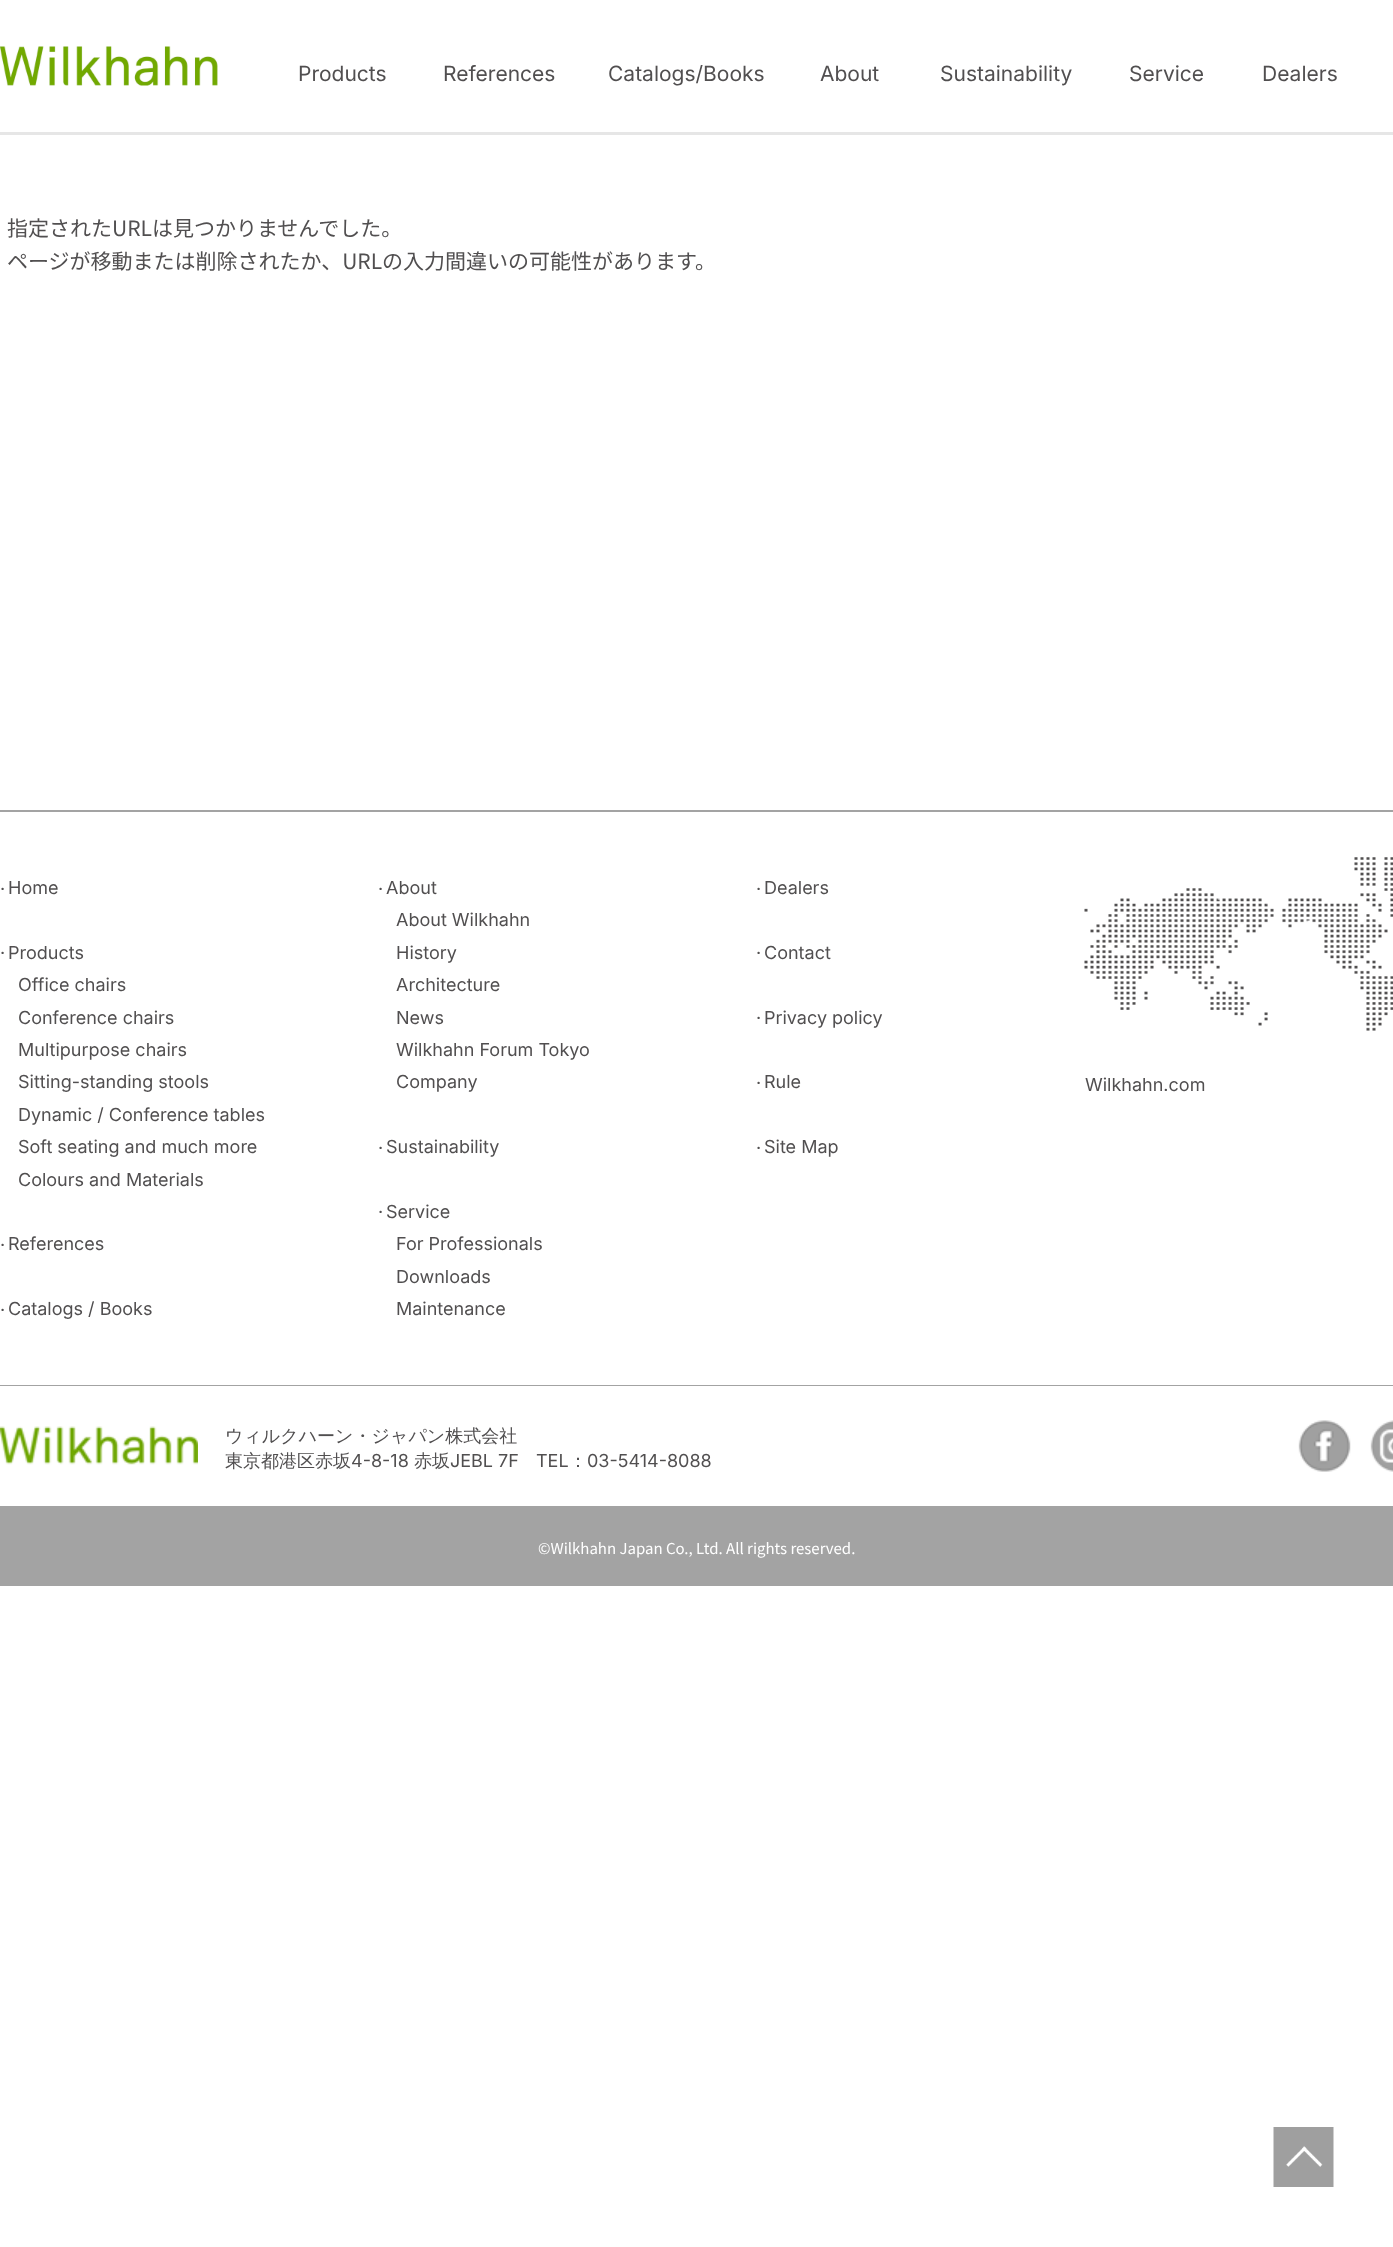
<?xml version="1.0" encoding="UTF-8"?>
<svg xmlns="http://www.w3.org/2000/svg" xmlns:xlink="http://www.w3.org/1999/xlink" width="1393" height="2247">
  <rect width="100%" height="100%" fill="#ffffff" />
  <rect y="132" width="1393" height="3" fill="#e6e6e6" />
  <image x="0" y="46" width="218" height="40" xlink:href="image1.png" />
  <rect y="810" width="1393" height="2" fill="#a3a3a3" />
  <rect y="1506" width="1393" height="80" fill="#a3a3a3" />
  <image x="1084" y="857" width="309" height="174" xlink:href="image2.png" />
  <rect y="1385" width="1393" height="1" fill="#a3a3a3" />
  <image x="0" y="1426" width="198" height="39" xlink:href="image3.png" />
  <image x="1298" y="1420" width="53" height="52" xlink:href="image4.png" />
  <image x="1370" y="1420" width="23" height="52" xlink:href="image5.png" />
  <image x="1273" y="2127" width="61" height="60" xlink:href="image6.png" />
  <text x="298" y="81" style="font-family: Inter; font-size: 21px; fill: #514f50">Products</text>
  <text x="443" y="81" style="font-family: Inter; font-size: 21px; fill: #514f50">References</text>
  <text x="608" y="81" style="font-family: Inter; font-size: 21px; fill: #514f50">Catalogs/Books</text>
  <text x="820" y="81" style="font-family: Inter; font-size: 21px; fill: #514f50">About</text>
  <text x="940" y="81" style="font-family: Inter; font-size: 21px; fill: #514f50">Sustainability</text>
  <text x="1129" y="81" style="font-family: Inter; font-size: 21px; fill: #514f50">Service</text>
  <text x="1262" y="81" style="font-family: Inter; font-size: 21px; fill: #514f50">Dealers</text>
  <text x="7" y="236" style="font-family: Noto Sans JP; font-size: 21px; fill: #514f50">指定されたURLは見つかりませんでした。</text>
  <text x="7" y="269" style="font-family: Noto Sans JP; font-size: 21px; fill: #514f50">ページが移動または削除されたか、URLの入力間違いの可能性があります。</text>
  <text x="0" y="890" style="font-family: Inter; font-size: 18px; fill: #514f50">.</text>
  <text x="8" y="894" style="font-family: Inter; font-size: 18px; fill: #514f50">Home</text>
  <text x="0" y="954" style="font-family: Inter; font-size: 18px; fill: #514f50">.</text>
  <text x="8" y="959" style="font-family: Inter; font-size: 18px; fill: #514f50">Products</text>
  <text x="18" y="991" style="font-family: Inter; font-size: 18px; fill: #514f50">Office chairs</text>
  <text x="18" y="1024" style="font-family: Inter; font-size: 18px; fill: #514f50">Conference chairs</text>
  <text x="18" y="1056" style="font-family: Inter; font-size: 18px; fill: #514f50">Multipurpose chairs</text>
  <text x="18" y="1088" style="font-family: Inter; font-size: 18px; fill: #514f50">Sitting-standing stools</text>
  <text x="18" y="1121" style="font-family: Inter; font-size: 18px; fill: #514f50">Dynamic / Conference tables</text>
  <text x="18" y="1153" style="font-family: Inter; font-size: 18px; fill: #514f50">Soft seating and much more</text>
  <text x="18" y="1186" style="font-family: Inter; font-size: 18px; fill: #514f50">Colours and Materials</text>
  <text x="0" y="1246" style="font-family: Inter; font-size: 18px; fill: #514f50">.</text>
  <text x="8" y="1250" style="font-family: Inter; font-size: 18px; fill: #514f50">References</text>
  <text x="0" y="1311" style="font-family: Inter; font-size: 18px; fill: #514f50">.</text>
  <text x="8" y="1315" style="font-family: Inter; font-size: 18px; fill: #514f50">Catalogs / Books</text>
  <text x="378" y="890" style="font-family: Inter; font-size: 18px; fill: #514f50">.</text>
  <text x="386" y="894" style="font-family: Inter; font-size: 18px; fill: #514f50">About</text>
  <text x="396" y="926" style="font-family: Inter; font-size: 18px; fill: #514f50">About Wilkhahn</text>
  <text x="396" y="959" style="font-family: Inter; font-size: 18px; fill: #514f50">History</text>
  <text x="396" y="991" style="font-family: Inter; font-size: 18px; fill: #514f50">Architecture</text>
  <text x="396" y="1024" style="font-family: Inter; font-size: 18px; fill: #514f50">News</text>
  <text x="396" y="1056" style="font-family: Inter; font-size: 18px; fill: #514f50">Wilkhahn Forum Tokyo</text>
  <text x="396" y="1088" style="font-family: Inter; font-size: 18px; fill: #514f50">Company</text>
  <text x="378" y="1149" style="font-family: Inter; font-size: 18px; fill: #514f50">.</text>
  <text x="386" y="1153" style="font-family: Inter; font-size: 18px; fill: #514f50">Sustainability</text>
  <text x="378" y="1213" style="font-family: Inter; font-size: 18px; fill: #514f50">.</text>
  <text x="386" y="1218" style="font-family: Inter; font-size: 18px; fill: #514f50">Service</text>
  <text x="396" y="1250" style="font-family: Inter; font-size: 18px; fill: #514f50">For Professionals</text>
  <text x="396" y="1283" style="font-family: Inter; font-size: 18px; fill: #514f50">Downloads</text>
  <text x="396" y="1315" style="font-family: Inter; font-size: 18px; fill: #514f50">Maintenance</text>
  <text x="756" y="890" style="font-family: Inter; font-size: 18px; fill: #514f50">.</text>
  <text x="764" y="894" style="font-family: Inter; font-size: 18px; fill: #514f50">Dealers</text>
  <text x="756" y="954" style="font-family: Inter; font-size: 18px; fill: #514f50">.</text>
  <text x="764" y="959" style="font-family: Inter; font-size: 18px; fill: #514f50">Contact</text>
  <text x="756" y="1019" style="font-family: Inter; font-size: 18px; fill: #514f50">.</text>
  <text x="764" y="1024" style="font-family: Inter; font-size: 18px; fill: #514f50">Privacy policy</text>
  <text x="756" y="1084" style="font-family: Inter; font-size: 18px; fill: #514f50">.</text>
  <text x="764" y="1088" style="font-family: Inter; font-size: 18px; fill: #514f50">Rule</text>
  <text x="756" y="1149" style="font-family: Inter; font-size: 18px; fill: #514f50">.</text>
  <text x="764" y="1153" style="font-family: Inter; font-size: 18px; fill: #514f50">Site Map</text>
  <text x="1085" y="1091" style="font-family: Inter; font-size: 18px; fill: #514f50">Wilkhahn.com</text>
  <text x="225" y="1442" style="font-family: WenQuanYi Zen Hei; font-size: 18px; font-weight: 500; fill: #514f50">ウィルクハーン・ジャパン株式会社</text>
  <text x="225" y="1467" style="font-family: WenQuanYi Zen Hei; font-size: 18px; font-weight: 500; fill: #514f50">東京都港区赤坂</text>
  <text x="351" y="1467" style="font-family: Inter; font-size: 18px; fill: #514f50">4-8-18</text>
  <text x="414" y="1467" style="font-family: WenQuanYi Zen Hei; font-size: 18px; font-weight: 500; fill: #514f50">赤坂</text>
  <text x="450" y="1467" style="font-family: Inter; font-size: 18px; fill: #514f50">JEBL 7F</text>
  <text x="536" y="1467" style="font-family: Inter; font-size: 18px; fill: #514f50">TEL</text>
  <text x="569" y="1467" style="font-family: WenQuanYi Zen Hei; font-size: 18px; font-weight: 500; fill: #514f50">：</text>
  <text x="587" y="1467" style="font-family: Inter; font-size: 18px; fill: #514f50">03-5414-8088</text>
  <text x="538" y="1554" style="font-family: Noto Sans JP; font-size: 15px; fill: #ffffff">©Wilkhahn Japan Co., Ltd. All rights reserved.</text>
</svg>
